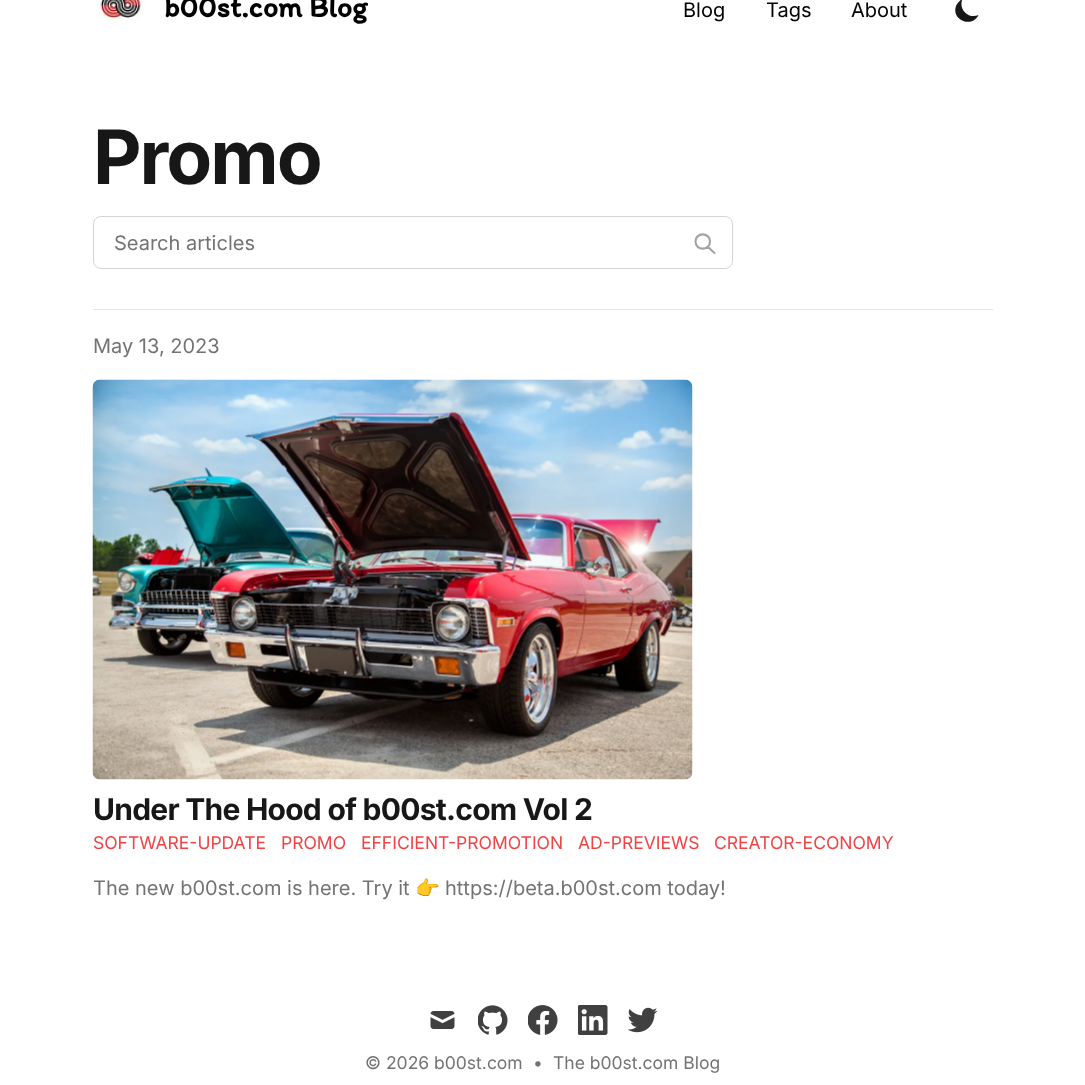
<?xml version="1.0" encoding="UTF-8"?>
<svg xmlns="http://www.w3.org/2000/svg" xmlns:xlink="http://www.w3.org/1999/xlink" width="1085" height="1085">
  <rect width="100%" height="100%" fill="#ffffff" />
  <image x="97" y="0" width="48" height="24" xlink:href="image1.png" />
  <path d="M 978.5 15 c -10 4.5 -20.5 -6 -16 -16 c -3 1.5 -5 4 -6.5 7 c -5 14 16 22.5 22.5 9 z" fill="#171717" />
  <rect x="93.5" y="216.5" width="639" height="52" rx="7.5" fill="none" stroke="#d4d4d4" />
  <path d="M 714.5 253 l -6.5 -6 m 2 -5.5 c 0 9.5 -14.5 9.5 -14.5 0 c 0 -9.5 14.5 -9.5 14.5 0 z" fill="none" stroke="#a3a3a3" stroke-width="2.1" stroke-linecap="round" stroke-linejoin="round" />
  <rect x="93" y="309" width="900" height="1" fill="#e5e5e5" />
  <image x="92" y="379" width="601" height="401" xlink:href="image2.png" />
  <image x="430" y="1011" width="25" height="18" xlink:href="image3.png" />
  <image x="478" y="1005" width="30" height="30" xlink:href="image4.png" />
  <image x="528" y="1005" width="30" height="30" xlink:href="image5.png" />
  <image x="578" y="1005" width="30" height="30" xlink:href="image6.png" />
  <image x="628" y="1007" width="30" height="26" xlink:href="image7.png" />
  <text x="164" y="17" style="font-family: Itim; font-size: 30px; font-weight: bold; fill: #000000">b00st.com Blog</text>
  <text x="683" y="17" style="font-family: Inter; font-size: 20px; fill: #000000">Blog</text>
  <text x="766" y="17" style="font-family: Inter; font-size: 20px; fill: #000000">Tags</text>
  <text x="851" y="17" style="font-family: Inter; font-size: 20px; fill: #000000">About</text>
  <text x="93" y="184" style="font-family: Inter; font-size: 75px; font-weight: bold; letter-spacing: -2px; fill: #171717">Promo</text>
  <text x="114" y="250" style="font-family: Inter; font-size: 20px; fill: #737373">Search articles</text>
  <text x="93" y="353" style="font-family: Inter; font-size: 20px; fill: #737373">May 13, 2023</text>
  <text x="93" y="820" style="font-family: Inter; font-size: 30px; font-weight: bold; letter-spacing: -0.75px; fill: #171717">Under The Hood of b00st.com Vol 2</text>
  <text x="93" y="849" style="font-family: Inter; font-size: 17.5px; fill: #ef4444">SOFTWARE-UPDATE</text>
  <text x="281" y="849" style="font-family: Inter; font-size: 17.5px; fill: #ef4444">PROMO</text>
  <text x="361" y="849" style="font-family: Inter; font-size: 17.5px; fill: #ef4444">EFFICIENT-PROMOTION</text>
  <text x="578" y="849" style="font-family: Inter; font-size: 17.5px; fill: #ef4444">AD-PREVIEWS</text>
  <text x="714" y="849" style="font-family: Inter; font-size: 17.5px; fill: #ef4444">CREATOR-ECONOMY</text>
  <text x="93" y="895" style="font-family: Inter; font-size: 20px; fill: #737373">The new b00st.com is here. Try it</text>
  <text x="415" y="895" style="font-family: Noto Color Emoji; font-size: 20px; fill: #737373">👉️</text>
  <text x="445" y="895" style="font-family: Inter; font-size: 20px; fill: #737373">https://beta.b00st.com today!</text>
  <text x="365" y="1069" style="font-family: Inter; font-size: 17.5px; fill: #737373">© 2026 b00st.com</text>
  <text x="533" y="1069" style="font-family: Inter; font-size: 17.5px; fill: #737373">•</text>
  <text x="553" y="1069" style="font-family: Inter; font-size: 17.5px; fill: #737373">The b00st.com Blog</text>
</svg>
